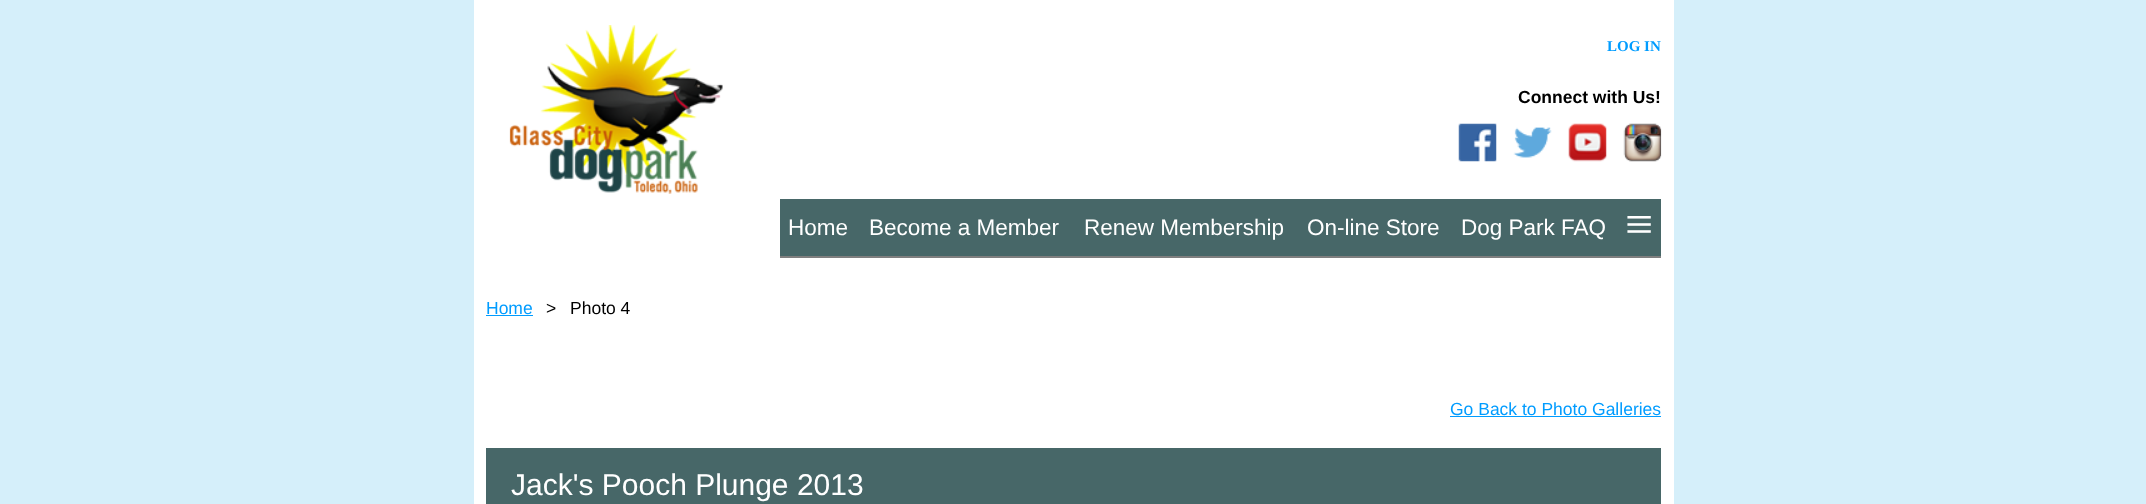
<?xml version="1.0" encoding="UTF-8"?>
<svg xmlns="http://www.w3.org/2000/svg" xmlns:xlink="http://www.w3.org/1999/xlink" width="2146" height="504">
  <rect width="100%" height="100%" fill="#d5effa" />
  <rect x="474" width="1200" height="504" fill="#ffffff" />
  <image x="509" y="25" width="214" height="169" xlink:href="image1.png" />
  <image x="1458" y="123" width="39" height="39" xlink:href="image2.png" />
  <image x="1513" y="127" width="39" height="31" xlink:href="image3.png" />
  <image x="1568" y="123" width="39" height="39" xlink:href="image4.png" />
  <image x="1623" y="123" width="39" height="39" xlink:href="image5.png" />
  <rect x="780" y="200" width="881" height="58" fill="#000000" fill-opacity="0.5" filter="blur(0.5px)" />
  <rect x="780" y="199" width="881" height="57" fill="#476768" />
  <rect x="486" y="315" width="47" height="1" fill="#009cff" />
  <rect x="1450" y="416" width="211" height="1" fill="#009cff" />
  <rect x="486" y="448" width="1175" height="56" fill="#476768" />
  <text x="1607" y="51" style="font-family: Liberation Serif; font-size: 15px; font-weight: bold; fill: #009cff">LOG IN</text>
  <text x="1518" y="103" style="font-family: Liberation Sans; font-size: 17.5px; font-weight: bold; fill: #000000">Connect with Us!</text>
  <text x="788" y="235" style="font-family: Liberation Sans; font-size: 22.5px; fill: #ffffff">Home</text>
  <text x="869" y="235" style="font-family: Liberation Sans; font-size: 22.5px; fill: #ffffff">Become a Member</text>
  <text x="1084" y="235" style="font-family: Liberation Sans; font-size: 22.5px; fill: #ffffff">Renew Membership</text>
  <text x="1307" y="235" style="font-family: Liberation Sans; font-size: 22.5px; fill: #ffffff">On-line Store</text>
  <text x="1461" y="235" style="font-family: Liberation Sans; font-size: 22.5px; fill: #ffffff">Dog Park FAQ</text>
  <text x="1625" y="241" style="font-family: Liberation Serif; font-size: 50px; fill: #ffffff">≡</text>
  <text x="486" y="314" style="font-family: Liberation Sans; font-size: 17.5px; fill: #009cff">Home</text>
  <text x="546" y="314" style="font-family: Liberation Sans; font-size: 17.5px; fill: #000000">&gt;</text>
  <text x="570" y="314" style="font-family: Liberation Sans; font-size: 17.5px; fill: #000000">Photo 4</text>
  <text x="1450" y="415" style="font-family: Liberation Sans; font-size: 17.5px; fill: #009cff">Go Back to Photo Galleries</text>
  <text x="511" y="495" style="font-family: Liberation Sans; font-size: 30px; fill: #ffffff">Jack's Pooch Plunge 2013</text>
</svg>
